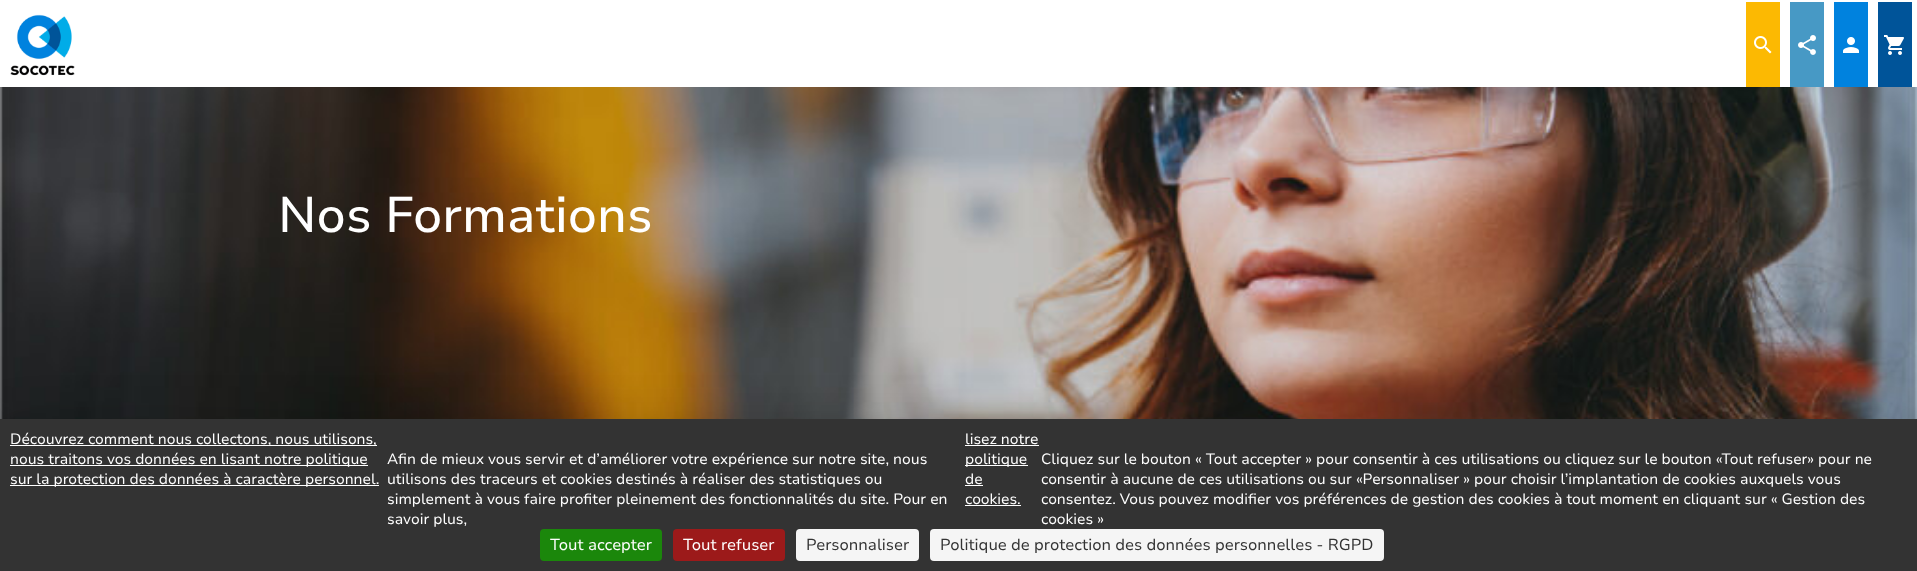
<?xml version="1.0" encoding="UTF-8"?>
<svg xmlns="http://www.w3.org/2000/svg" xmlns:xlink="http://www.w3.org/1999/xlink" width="1917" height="571">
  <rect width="100%" height="100%" fill="#ffffff" />
  <image x="10" y="14" width="65" height="62" xlink:href="image1.png" />
  <rect x="1746" y="2" width="34" height="85" fill="#fcb902" />
  <image x="1754" y="36" width="18" height="18" xlink:href="image2.png" />
  <rect x="1790" y="2" width="34" height="85" fill="#4799c5" />
  <image x="1798" y="35" width="18" height="20" xlink:href="image3.png" />
  <rect x="1834" y="2" width="34" height="85" fill="#0082de" />
  <image x="1843" y="37" width="16" height="16" xlink:href="image4.png" />
  <rect x="1878" y="2" width="34" height="85" fill="#005499" />
  <image x="1884" y="35" width="20" height="20" xlink:href="image5.png" />
  <image x="0" y="87" width="1917" height="332" xlink:href="image6.png" />
  <rect y="439" width="1917" height="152" fill="#000000" fill-opacity="0.25" filter="blur(30px)" />
  <rect y="419" width="1917" height="152" fill="#333333" />
  <rect x="10" y="445" width="367" height="1" fill="#ffffff" />
  <rect x="10" y="465" width="358" height="1" fill="#ffffff" />
  <rect x="10" y="485" width="369" height="1" fill="#ffffff" />
  <rect x="965" y="445" width="74" height="1" fill="#ffffff" />
  <rect x="965" y="465" width="63" height="1" fill="#ffffff" />
  <rect x="965" y="485" width="18" height="1" fill="#ffffff" />
  <rect x="965" y="505" width="56" height="1" fill="#ffffff" />
  <rect x="540" y="529" width="122" height="32" rx="4" fill="#1b870b" />
  <rect x="673" y="529" width="112" height="32" rx="4" fill="#9c1a1a" />
  <rect x="796" y="529" width="123" height="32" rx="4" fill="#f5f5f5" />
  <rect x="930" y="529" width="454" height="32" rx="4" fill="#f5f5f5" />
  <text x="278" y="232" style="font-family: Nunito Sans; font-size: 50px; font-weight: 500; fill: #ffffff">Nos Formations</text>
  <text x="10" y="444" style="font-family: Nunito Sans; font-size: 15px; fill: #ffffff">Découvrez comment nous collectons, nous utilisons,</text>
  <text x="10" y="464" style="font-family: Nunito Sans; font-size: 15px; fill: #ffffff">nous traitons vos données en lisant notre politique</text>
  <text x="10" y="484" style="font-family: Nunito Sans; font-size: 15px; fill: #ffffff">sur la protection des données à caractère personnel.</text>
  <text x="387" y="464" style="font-family: Nunito Sans; font-size: 15px; fill: #ffffff">Afin de mieux vous servir et d’améliorer votre expérience sur notre site, nous</text>
  <text x="965" y="444" style="font-family: Nunito Sans; font-size: 15px; fill: #ffffff">lisez notre</text>
  <text x="965" y="464" style="font-family: Nunito Sans; font-size: 15px; fill: #ffffff">politique</text>
  <text x="965" y="484" style="font-family: Nunito Sans; font-size: 15px; fill: #ffffff">de</text>
  <text x="965" y="504" style="font-family: Nunito Sans; font-size: 15px; fill: #ffffff">cookies.</text>
  <text x="1041" y="464" style="font-family: Nunito Sans; font-size: 15px; fill: #ffffff">Cliquez sur le bouton « Tout accepter » pour consentir à ces utilisations ou cliquez sur le bouton «Tout refuser» pour ne</text>
  <text x="387" y="484" style="font-family: Nunito Sans; font-size: 15px; fill: #ffffff">utilisons des traceurs et cookies destinés à réaliser des statistiques ou</text>
  <text x="1041" y="484" style="font-family: Nunito Sans; font-size: 15px; fill: #ffffff">consentir à aucune de ces utilisations ou sur «Personnaliser » pour choisir l’implantation de cookies auxquels vous</text>
  <text x="387" y="504" style="font-family: Nunito Sans; font-size: 15px; fill: #ffffff">simplement à vous faire profiter pleinement des fonctionnalités du site. Pour en</text>
  <text x="1041" y="504" style="font-family: Nunito Sans; font-size: 15px; fill: #ffffff">consentez. Vous pouvez modifier vos préférences de gestion des cookies à tout moment en cliquant sur « Gestion des</text>
  <text x="387" y="524" style="font-family: Nunito Sans; font-size: 15px; fill: #ffffff">savoir plus,</text>
  <text x="1041" y="524" style="font-family: Nunito Sans; font-size: 15px; fill: #ffffff">cookies »</text>
  <text x="550" y="550" style="font-family: Nunito Sans; font-size: 16px; fill: #ffffff">Tout accepter</text>
  <text x="683" y="550" style="font-family: Nunito Sans; font-size: 16px; fill: #ffffff">Tout refuser</text>
  <text x="806" y="550" style="font-family: Nunito Sans; font-size: 16px; fill: #333333">Personnaliser</text>
  <text x="940" y="550" style="font-family: Nunito Sans; font-size: 16px; fill: #333333">Politique de protection des données personnelles - RGPD</text>
</svg>
